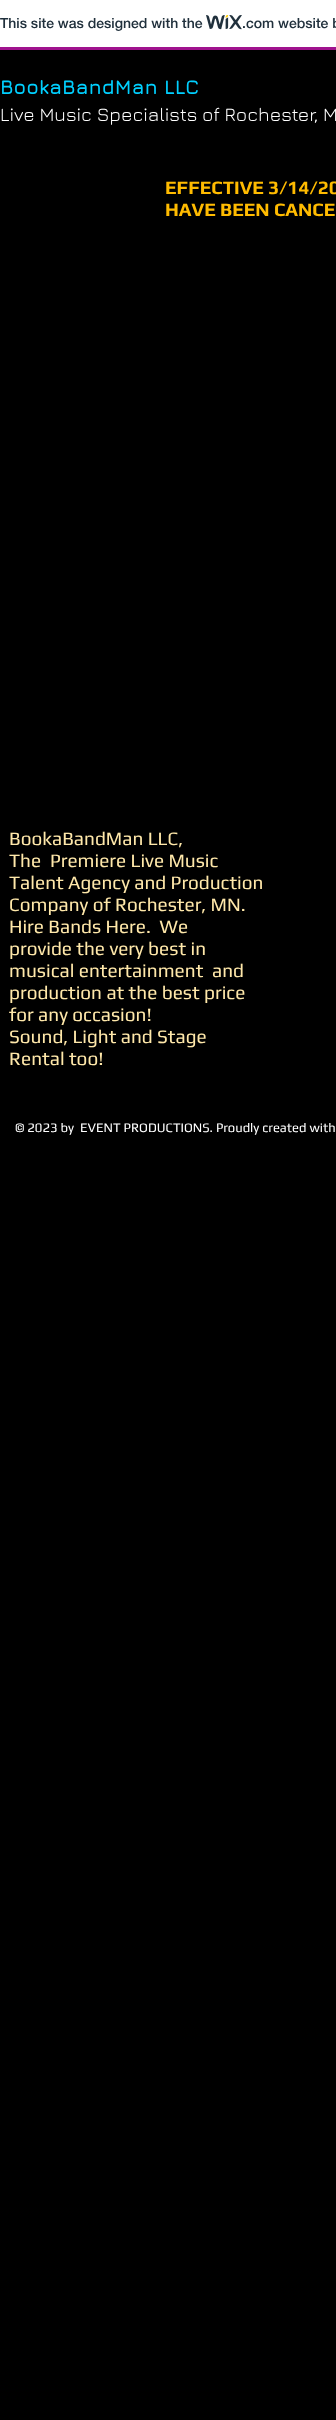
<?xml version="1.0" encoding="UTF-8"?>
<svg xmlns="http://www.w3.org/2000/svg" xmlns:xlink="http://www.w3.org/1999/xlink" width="336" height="2420">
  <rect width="100%" height="100%" fill="#000000" />
  <rect width="336" height="47" fill="#ffffff" />
  <rect y="47" width="336" height="3" fill="#a0138e" />
  <image x="206" y="15" width="36" height="15" xlink:href="image1.png" />
  <text x="0" y="28" style="font-family: 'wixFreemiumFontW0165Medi'; font-size: 14px; font-weight: 500; fill: #20303c">This site was designed with the</text>
  <text x="242" y="28" style="font-family: 'wixFreemiumFontW0165Medi'; font-size: 14px; font-weight: 500; fill: #20303c">.com website b</text>
  <text x="0" y="94" style="font-family: Jura; font-size: 20px; font-weight: bold; fill: #00d0ff">BookaBandMan LLC</text>
  <text x="0" y="121" style="font-family: Jura; font-size: 19px; fill: #ffffff">Live Music Specialists of Rochester, M</text>
  <text x="165" y="194" style="font-family: Play; font-size: 19px; font-weight: bold; fill: #ffbb00">EFFECTIVE 3/14/20</text>
  <text x="165" y="216" style="font-family: Play; font-size: 19px; font-weight: bold; fill: #ffbb00">HAVE BEEN CANCE</text>
  <text x="9" y="845" style="font-family: Play; font-size: 19px; fill: #ffe8aa">BookaBandMan LLC,</text>
  <text x="9" y="867" style="font-family: Play; font-size: 19px; fill: #ffe8aa" xml:space="preserve">The  Premiere Live Music</text>
  <text x="9" y="889" style="font-family: Play; font-size: 19px; fill: #ffe8aa">Talent Agency and Production</text>
  <text x="9" y="911" style="font-family: Play; font-size: 19px; fill: #ffe8aa">Company of Rochester, MN.</text>
  <text x="9" y="933" style="font-family: Play; font-size: 19px; fill: #ffe8aa" xml:space="preserve">Hire Bands Here.  We</text>
  <text x="9" y="955" style="font-family: Play; font-size: 19px; fill: #ffe8aa">provide the very best in</text>
  <text x="9" y="977" style="font-family: Play; font-size: 19px; fill: #ffe8aa" xml:space="preserve">musical entertainment  and</text>
  <text x="9" y="999" style="font-family: Play; font-size: 19px; fill: #ffe8aa">production at the best price</text>
  <text x="9" y="1021" style="font-family: Play; font-size: 19px; fill: #ffe8aa">for any occasion!</text>
  <text x="9" y="1043" style="font-family: Play; font-size: 19px; fill: #ffe8aa">Sound, Light and Stage</text>
  <text x="9" y="1065" style="font-family: Play; font-size: 19px; fill: #ffe8aa">Rental too!</text>
  <text x="15" y="1132" style="font-family: Play; font-size: 13px; fill: #ffffff" xml:space="preserve">© 2023 by  EVENT PRODUCTIONS. Proudly created with</text>
</svg>
